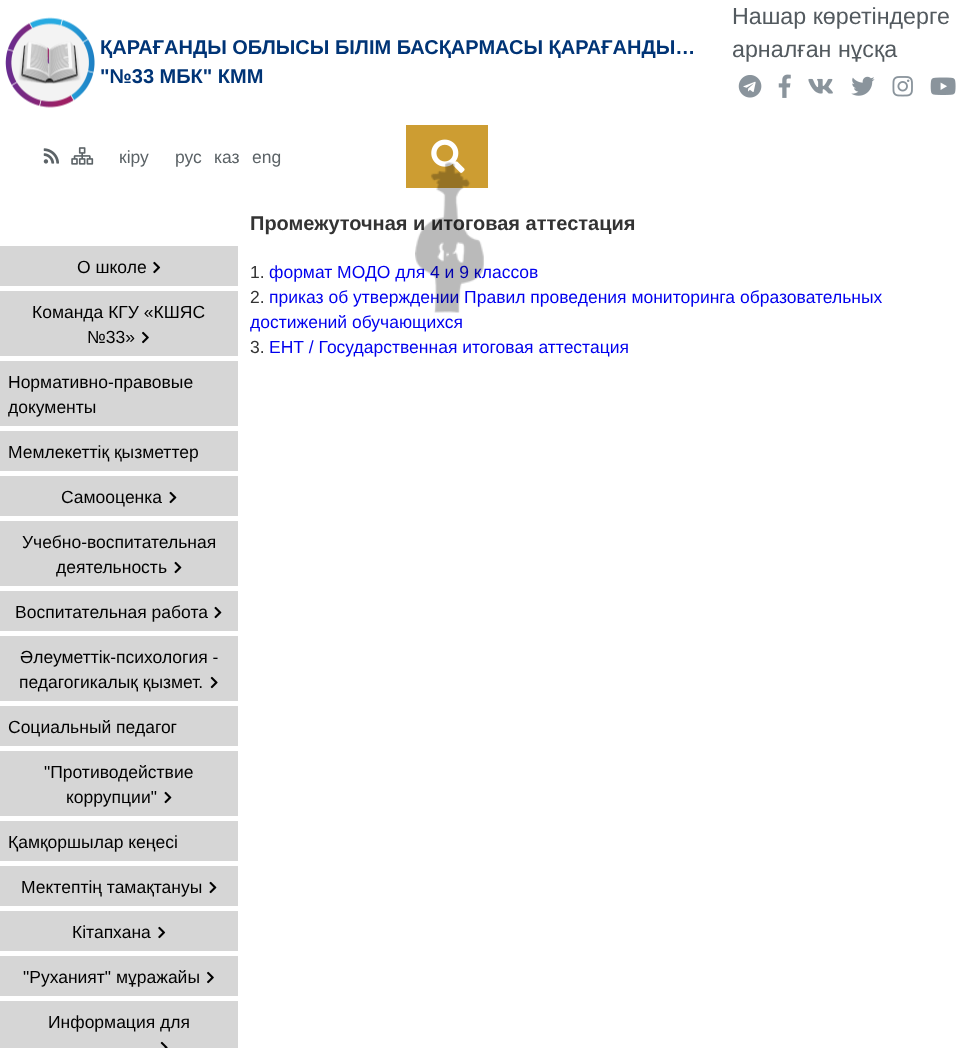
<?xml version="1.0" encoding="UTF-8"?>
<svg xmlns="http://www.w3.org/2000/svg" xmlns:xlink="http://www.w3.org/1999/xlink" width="976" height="1048">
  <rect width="100%" height="100%" fill="#ffffff" />
  <image x="5" y="17" width="90" height="91" xlink:href="image1.png" />
  <image x="738" y="75" width="24" height="23" xlink:href="image2.png" />
  <image x="778" y="74" width="13" height="24" xlink:href="image3.png" />
  <image x="808" y="78" width="25" height="16" xlink:href="image4.png" />
  <image x="851" y="76" width="24" height="20" xlink:href="image5.png" />
  <image x="892" y="76" width="21" height="21" xlink:href="image6.png" />
  <image x="930" y="77" width="26" height="18" xlink:href="image7.png" />
  <image x="43" y="148" width="16" height="16" xlink:href="image9.png" />
  <image x="71" y="147" width="23" height="18" xlink:href="image10.png" />
  <rect x="406" y="125" width="82" height="63" fill="#cd9d32" />
  <image x="431" y="139" width="34" height="34" xlink:href="image11.png" />
  <rect y="246" width="238" height="40" fill="#d6d6d6" />
  <image x="153" y="261" width="8" height="13" xlink:href="image12.png" />
  <rect y="291" width="238" height="65" fill="#d6d6d6" />
  <image x="142" y="331" width="7" height="13" xlink:href="image13.png" />
  <rect y="361" width="238" height="65" fill="#d6d6d6" />
  <rect y="431" width="238" height="40" fill="#d6d6d6" />
  <rect y="476" width="238" height="40" fill="#d6d6d6" />
  <image x="169" y="491" width="8" height="13" xlink:href="image14.png" />
  <rect y="521" width="238" height="65" fill="#d6d6d6" />
  <image x="174" y="561" width="8" height="13" xlink:href="image14.png" />
  <rect y="591" width="238" height="40" fill="#d6d6d6" />
  <image x="214" y="606" width="8" height="13" xlink:href="image14.png" />
  <rect y="636" width="238" height="65" fill="#d6d6d6" />
  <image x="210" y="676" width="8" height="13" xlink:href="image15.png" />
  <rect y="706" width="238" height="40" fill="#d6d6d6" />
  <rect y="751" width="238" height="65" fill="#d6d6d6" />
  <image x="164" y="791" width="8" height="13" xlink:href="image14.png" />
  <rect y="821" width="238" height="40" fill="#d6d6d6" />
  <rect y="866" width="238" height="40" fill="#d6d6d6" />
  <image x="209" y="881" width="8" height="13" xlink:href="image14.png" />
  <rect y="911" width="238" height="40" fill="#d6d6d6" />
  <image x="158" y="926" width="8" height="13" xlink:href="image12.png" />
  <rect y="956" width="238" height="40" fill="#d6d6d6" />
  <image x="207" y="971" width="7" height="13" xlink:href="image13.png" />
  <rect y="1001" width="238" height="47" fill="#d6d6d6" />
  <image x="160" y="1041" width="8" height="7" xlink:href="image16.png" />
  <text x="100" y="54" style="font-family: Liberation Sans; font-size: 20px; font-weight: bold; fill: #003476">ҚАРАҒАНДЫ ОБЛЫСЫ БІЛІМ БАСҚАРМАСЫ ҚАРАҒАНДЫ…</text>
  <text x="100" y="83" style="font-family: Liberation Sans; font-size: 20px; font-weight: bold; fill: #003476">"№33 МБК" КММ</text>
  <text x="732" y="24" style="font-family: Liberation Sans; font-size: 23.25px; fill: #535a5f">Нашар көретіндерге</text>
  <text x="732" y="57" style="font-family: Liberation Sans; font-size: 23.25px; fill: #535a5f">арналған нұсқа</text>
  <text x="119" y="163" style="font-family: Liberation Sans; font-size: 17.5px; fill: #5c6367">кіру</text>
  <text x="175" y="163" style="font-family: Liberation Sans; font-size: 17.5px; fill: #5c6367">рус</text>
  <text x="214" y="163" style="font-family: Liberation Sans; font-size: 17.5px; fill: #5c6367">каз</text>
  <text x="252" y="163" style="font-family: Liberation Sans; font-size: 17.5px; fill: #5c6367">eng</text>
  <text x="77" y="273" style="font-family: Liberation Sans; font-size: 17.5px; fill: #000000">О школе</text>
  <text x="32" y="318" style="font-family: Liberation Sans; font-size: 17.5px; fill: #000000">Команда КГУ «КШЯС</text>
  <text x="87" y="343" style="font-family: Liberation Sans; font-size: 17.5px; fill: #000000">№33»</text>
  <text x="8" y="388" style="font-family: Liberation Sans; font-size: 17.5px; fill: #000000">Нормативно-правовые</text>
  <text x="8" y="413" style="font-family: Liberation Sans; font-size: 17.5px; fill: #000000">документы</text>
  <text x="8" y="458" style="font-family: Liberation Sans; font-size: 17.5px; fill: #000000">Мемлекеттіқ қызметтер</text>
  <text x="61" y="503" style="font-family: Liberation Sans; font-size: 17.5px; fill: #000000">Самооценка</text>
  <text x="22" y="548" style="font-family: Liberation Sans; font-size: 17.5px; fill: #000000">Учебно-воспитательная</text>
  <text x="56" y="573" style="font-family: Liberation Sans; font-size: 17.5px; fill: #000000">деятельность</text>
  <text x="15" y="618" style="font-family: Liberation Sans; font-size: 17.5px; fill: #000000">Воспитательная работа</text>
  <text x="20" y="663" style="font-family: Liberation Sans; font-size: 17.5px; fill: #000000">Әлеуметтік-психология -</text>
  <text x="19" y="688" style="font-family: Liberation Sans; font-size: 17.5px; fill: #000000">педагогикалық қызмет.</text>
  <text x="8" y="733" style="font-family: Liberation Sans; font-size: 17.5px; fill: #000000">Социальный педагог</text>
  <text x="44" y="778" style="font-family: Liberation Sans; font-size: 17.5px; fill: #000000">"Противодействие</text>
  <text x="66" y="803" style="font-family: Liberation Sans; font-size: 17.5px; fill: #000000">коррупции"</text>
  <text x="8" y="848" style="font-family: Liberation Sans; font-size: 17.5px; fill: #000000">Қамқоршылар кеңесі</text>
  <text x="21" y="893" style="font-family: Liberation Sans; font-size: 17.5px; fill: #000000">Мектептің тамақтануы</text>
  <text x="72" y="938" style="font-family: Liberation Sans; font-size: 17.5px; fill: #000000">Кітапхана</text>
  <text x="23" y="983" style="font-family: Liberation Sans; font-size: 17.5px; fill: #000000">"Руханият" мұражайы</text>
  <text x="48" y="1028" style="font-family: Liberation Sans; font-size: 17.5px; fill: #000000">Информация для</text>
  <text x="250" y="230" style="font-family: Liberation Sans; font-size: 20px; font-weight: bold; fill: #333333">Промежуточная и итоговая аттестация</text>
  <text x="250" y="278" style="font-family: Liberation Sans; font-size: 17.5px; fill: #333333">1.</text>
  <text x="269" y="278" style="font-family: Liberation Sans; font-size: 17.5px; fill: #0000ee">формат МОДО для 4 и 9 классов</text>
  <text x="250" y="303" style="font-family: Liberation Sans; font-size: 17.5px; fill: #333333">2.</text>
  <text x="269" y="303" style="font-family: Liberation Sans; font-size: 17.5px; fill: #0000ee">приказ об утверждении Правил проведения мониторинга образовательных</text>
  <image x="415" y="162" width="69" height="151" xlink:href="image8.png" />
  <text x="250" y="328" style="font-family: Liberation Sans; font-size: 17.5px; fill: #0000ee">достижений обучающихся</text>
  <text x="250" y="353" style="font-family: Liberation Sans; font-size: 17.5px; fill: #333333">3.</text>
  <text x="269" y="353" style="font-family: Liberation Sans; font-size: 17.5px; fill: #0000ee">ЕНТ / Государственная итоговая аттестация</text>
</svg>
